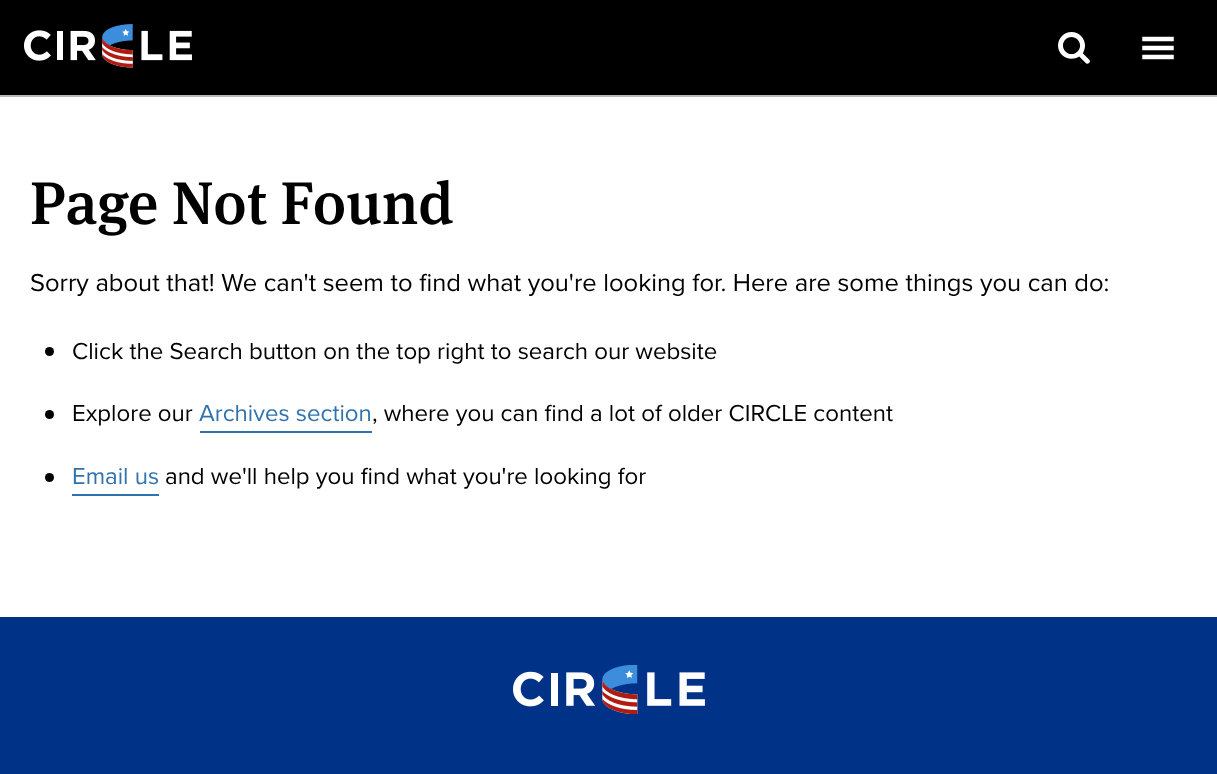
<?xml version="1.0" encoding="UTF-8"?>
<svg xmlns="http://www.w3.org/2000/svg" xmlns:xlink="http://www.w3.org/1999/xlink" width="1217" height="774">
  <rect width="100%" height="100%" fill="#ffffff" />
  <rect width="1217" height="95" fill="#000000" />
  <image x="24" y="24" width="168" height="44" xlink:href="image1.png" />
  <image x="1058" y="32" width="32" height="32" xlink:href="image2.png" />
  <image x="1142" y="36" width="32" height="24" xlink:href="image3.png" />
  <rect y="95" width="1217" height="2" fill="#bbbbbb" />
  <circle cx="49.5" cy="351.5" r="4.5" fill="#000000" />
  <circle cx="49.5" cy="414.5" r="4.5" fill="#000000" />
  <rect x="200" y="431" width="172" height="2" fill="#3072ae" />
  <circle cx="49.5" cy="477.5" r="4.5" fill="#000000" />
  <rect x="72" y="494" width="87" height="2" fill="#3072ae" />
  <rect y="617" width="1217" height="157" fill="#003388" />
  <image x="513" y="665" width="192" height="49" xlink:href="image4.png" />
  <text x="30" y="224" style="font-family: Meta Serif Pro; font-size: 60px; font-weight: 500; fill: #000000">Page Not Found</text>
  <text x="30" y="291" style="font-family: Proxima Nova; font-size: 25.5px; fill: #000000">Sorry about that! We can't seem to find what you're looking for. Here are some things you can do:</text>
  <text x="72" y="359" style="font-family: Proxima Nova; font-size: 24px; fill: #000000">Click the Search button on the top right to search our website</text>
  <text x="72" y="421" style="font-family: Proxima Nova; font-size: 24px; fill: #000000">Explore our</text>
  <text x="199" y="421" style="font-family: Proxima Nova; font-size: 24px; fill: #3072ae">Archives section</text>
  <text x="372" y="421" style="font-family: Proxima Nova; font-size: 24px; fill: #000000">, where you can find a lot of older CIRCLE content</text>
  <text x="72" y="484" style="font-family: Proxima Nova; font-size: 24px; fill: #3072ae">Email us</text>
  <text x="165" y="484" style="font-family: Proxima Nova; font-size: 24px; fill: #000000">and we'll help you find what you're looking for</text>
</svg>
